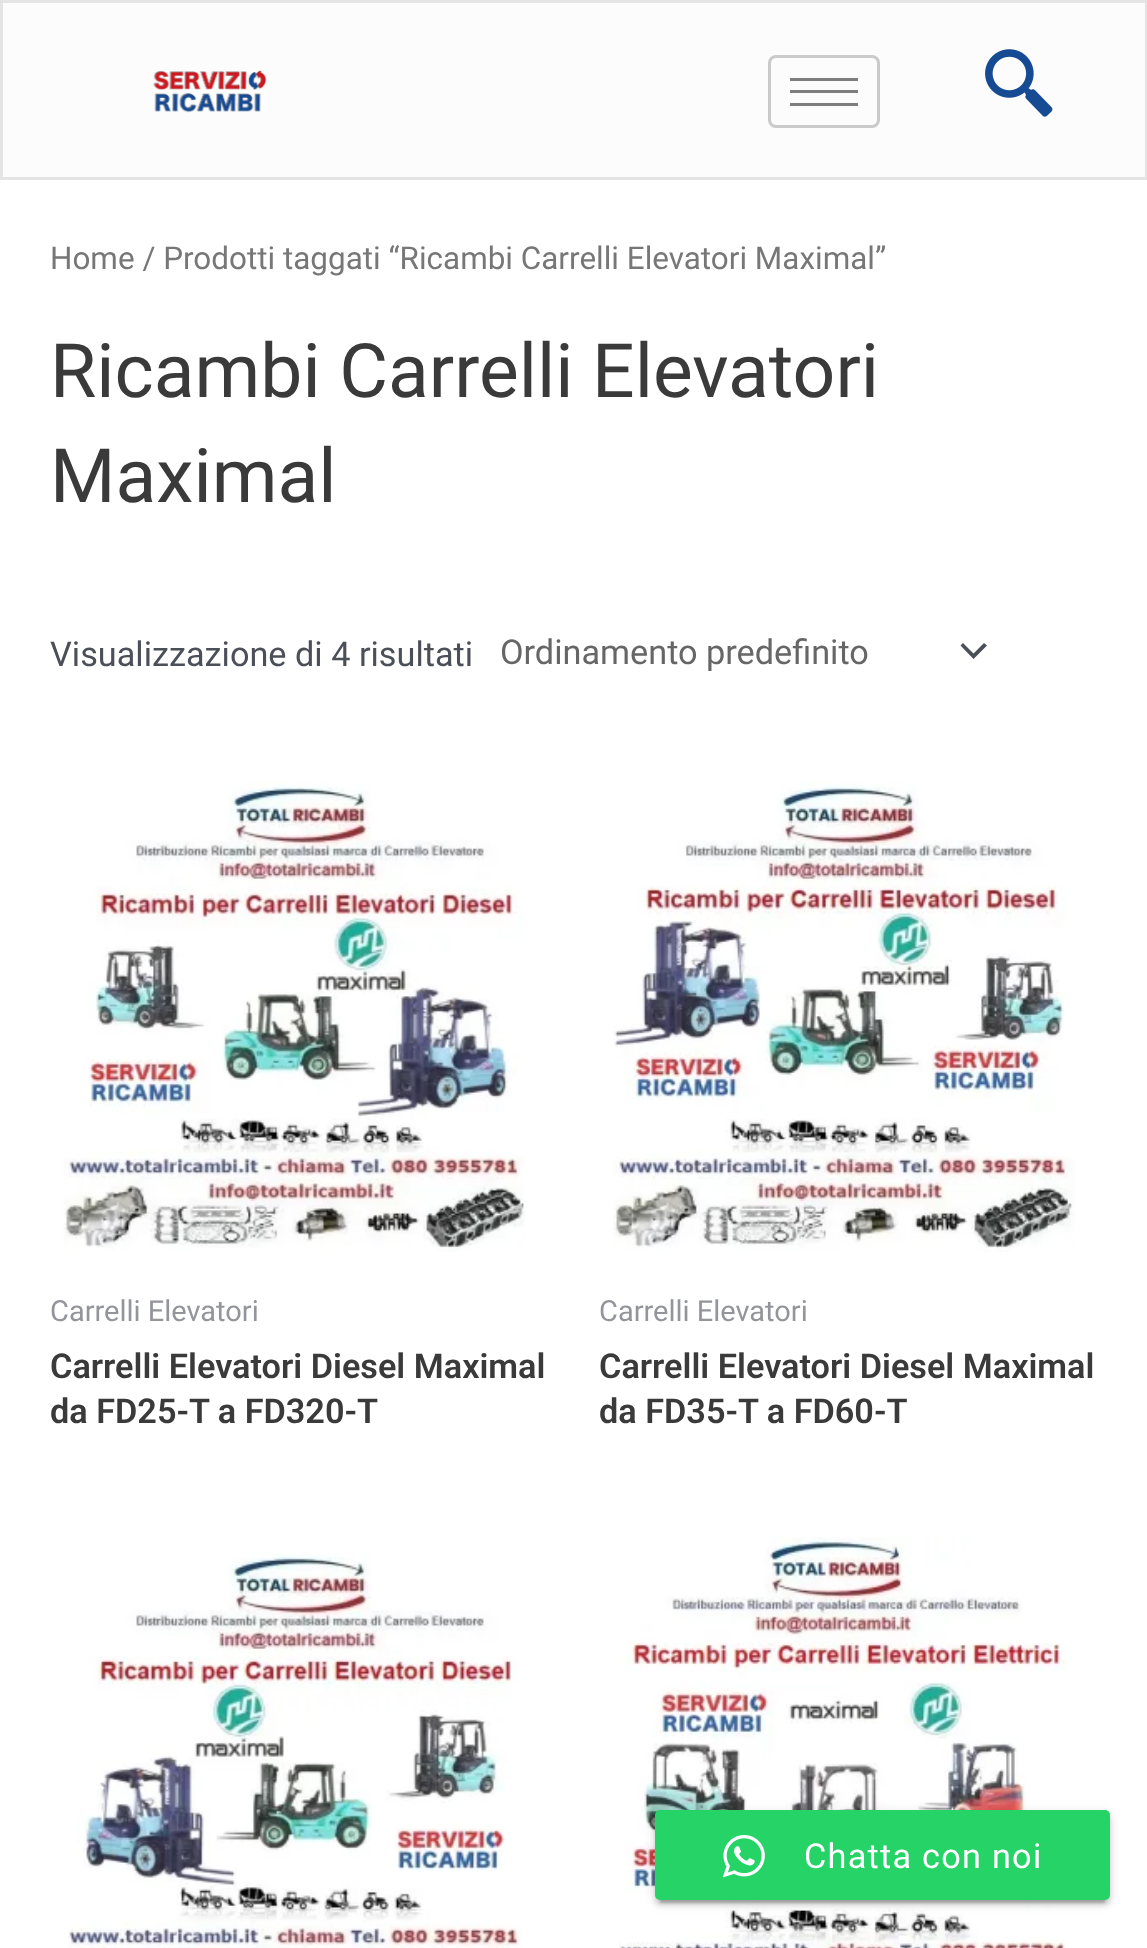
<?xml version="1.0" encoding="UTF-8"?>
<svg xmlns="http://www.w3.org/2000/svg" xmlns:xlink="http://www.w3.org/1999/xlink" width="1147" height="1948">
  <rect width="100%" height="100%" fill="#ffffff" />
  <rect x="1.5" y="1.5" width="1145" height="177" fill="#fcfcfc" stroke="#e4e4e4" stroke-width="3" />
  <image x="153" y="70" width="114" height="43" xlink:href="image1.png" />
  <rect x="769.5" y="56.5" width="109" height="70" rx="6.5" fill="none" stroke="#cacaca" stroke-width="3" />
  <rect x="790" y="78" width="68" height="3" fill="#7e7e7e" />
  <rect x="790" y="90" width="68" height="3" fill="#7e7e7e" />
  <rect x="790" y="103" width="68" height="3" fill="#7e7e7e" />
  <image x="985" y="49" width="68" height="68" xlink:href="image2.png" />
  <path d="M 960.5 645.5 l 13 13.5 l 13.5 -13.5 l -3 -2.5 l -10.5 10.5 l -10.5 -10.5 z" fill="#4b4f58" />
  <image x="63" y="782" width="462" height="470" xlink:href="image3.png" />
  <image x="613" y="781" width="462" height="471" xlink:href="image4.png" />
  <image x="68" y="1551" width="453" height="397" xlink:href="image5.png" />
  <image x="619" y="1537" width="448" height="411" xlink:href="image6.png" />
  <rect x="660" y="1823" width="445" height="80" fill="#000000" fill-opacity="0.2" filter="blur(1px)" />
  <rect x="655" y="1813" width="455" height="90" rx="5" fill="#000000" fill-opacity="0.12" filter="blur(6px)" />
  <rect x="655" y="1815" width="455" height="90" rx="5" fill="#000000" fill-opacity="0.14" filter="blur(2.5px)" />
  <rect x="655" y="1810" width="455" height="90" rx="5" fill="#25d366" />
  <image x="723" y="1835" width="42" height="43" xlink:href="image7.png" />
  <text x="50" y="269" style="font-family: Roboto; font-size: 31.45px; fill: #777777">Home / Prodotti taggati “Ricambi Carrelli Elevatori Maximal”</text>
  <text x="50" y="397" style="font-family: Roboto; font-size: 75px; fill: #3a3a3a">Ricambi Carrelli Elevatori</text>
  <text x="50" y="502" style="font-family: Roboto; font-size: 75px; fill: #3a3a3a">Maximal</text>
  <text x="50" y="666" style="font-family: Roboto; font-size: 34.25px; fill: #4b4f58">Visualizzazione di 4 risultati</text>
  <text x="500" y="664" style="font-family: Roboto; font-size: 34.25px; fill: #666666">Ordinamento predefinito</text>
  <text x="50" y="1321" style="font-family: Roboto; font-size: 29px; fill: #93959b">Carrelli Elevatori</text>
  <text x="50" y="1378" style="font-family: Roboto; font-size: 34.25px; font-weight: 600; fill: #3a3a3a">Carrelli Elevatori Diesel Maximal</text>
  <text x="50" y="1423" style="font-family: Roboto; font-size: 34.25px; font-weight: 600; fill: #3a3a3a">da FD25-T a FD320-T</text>
  <text x="599" y="1321" style="font-family: Roboto; font-size: 29px; fill: #93959b">Carrelli Elevatori</text>
  <text x="599" y="1378" style="font-family: Roboto; font-size: 34.25px; font-weight: 600; fill: #3a3a3a">Carrelli Elevatori Diesel Maximal</text>
  <text x="599" y="1423" style="font-family: Roboto; font-size: 34.25px; font-weight: 600; fill: #3a3a3a">da FD35-T a FD60-T</text>
  <text x="804" y="1868" style="font-family: Roboto; font-size: 34.25px; letter-spacing: 1.25px; fill: #ffffff">Chatta con noi</text>
</svg>
